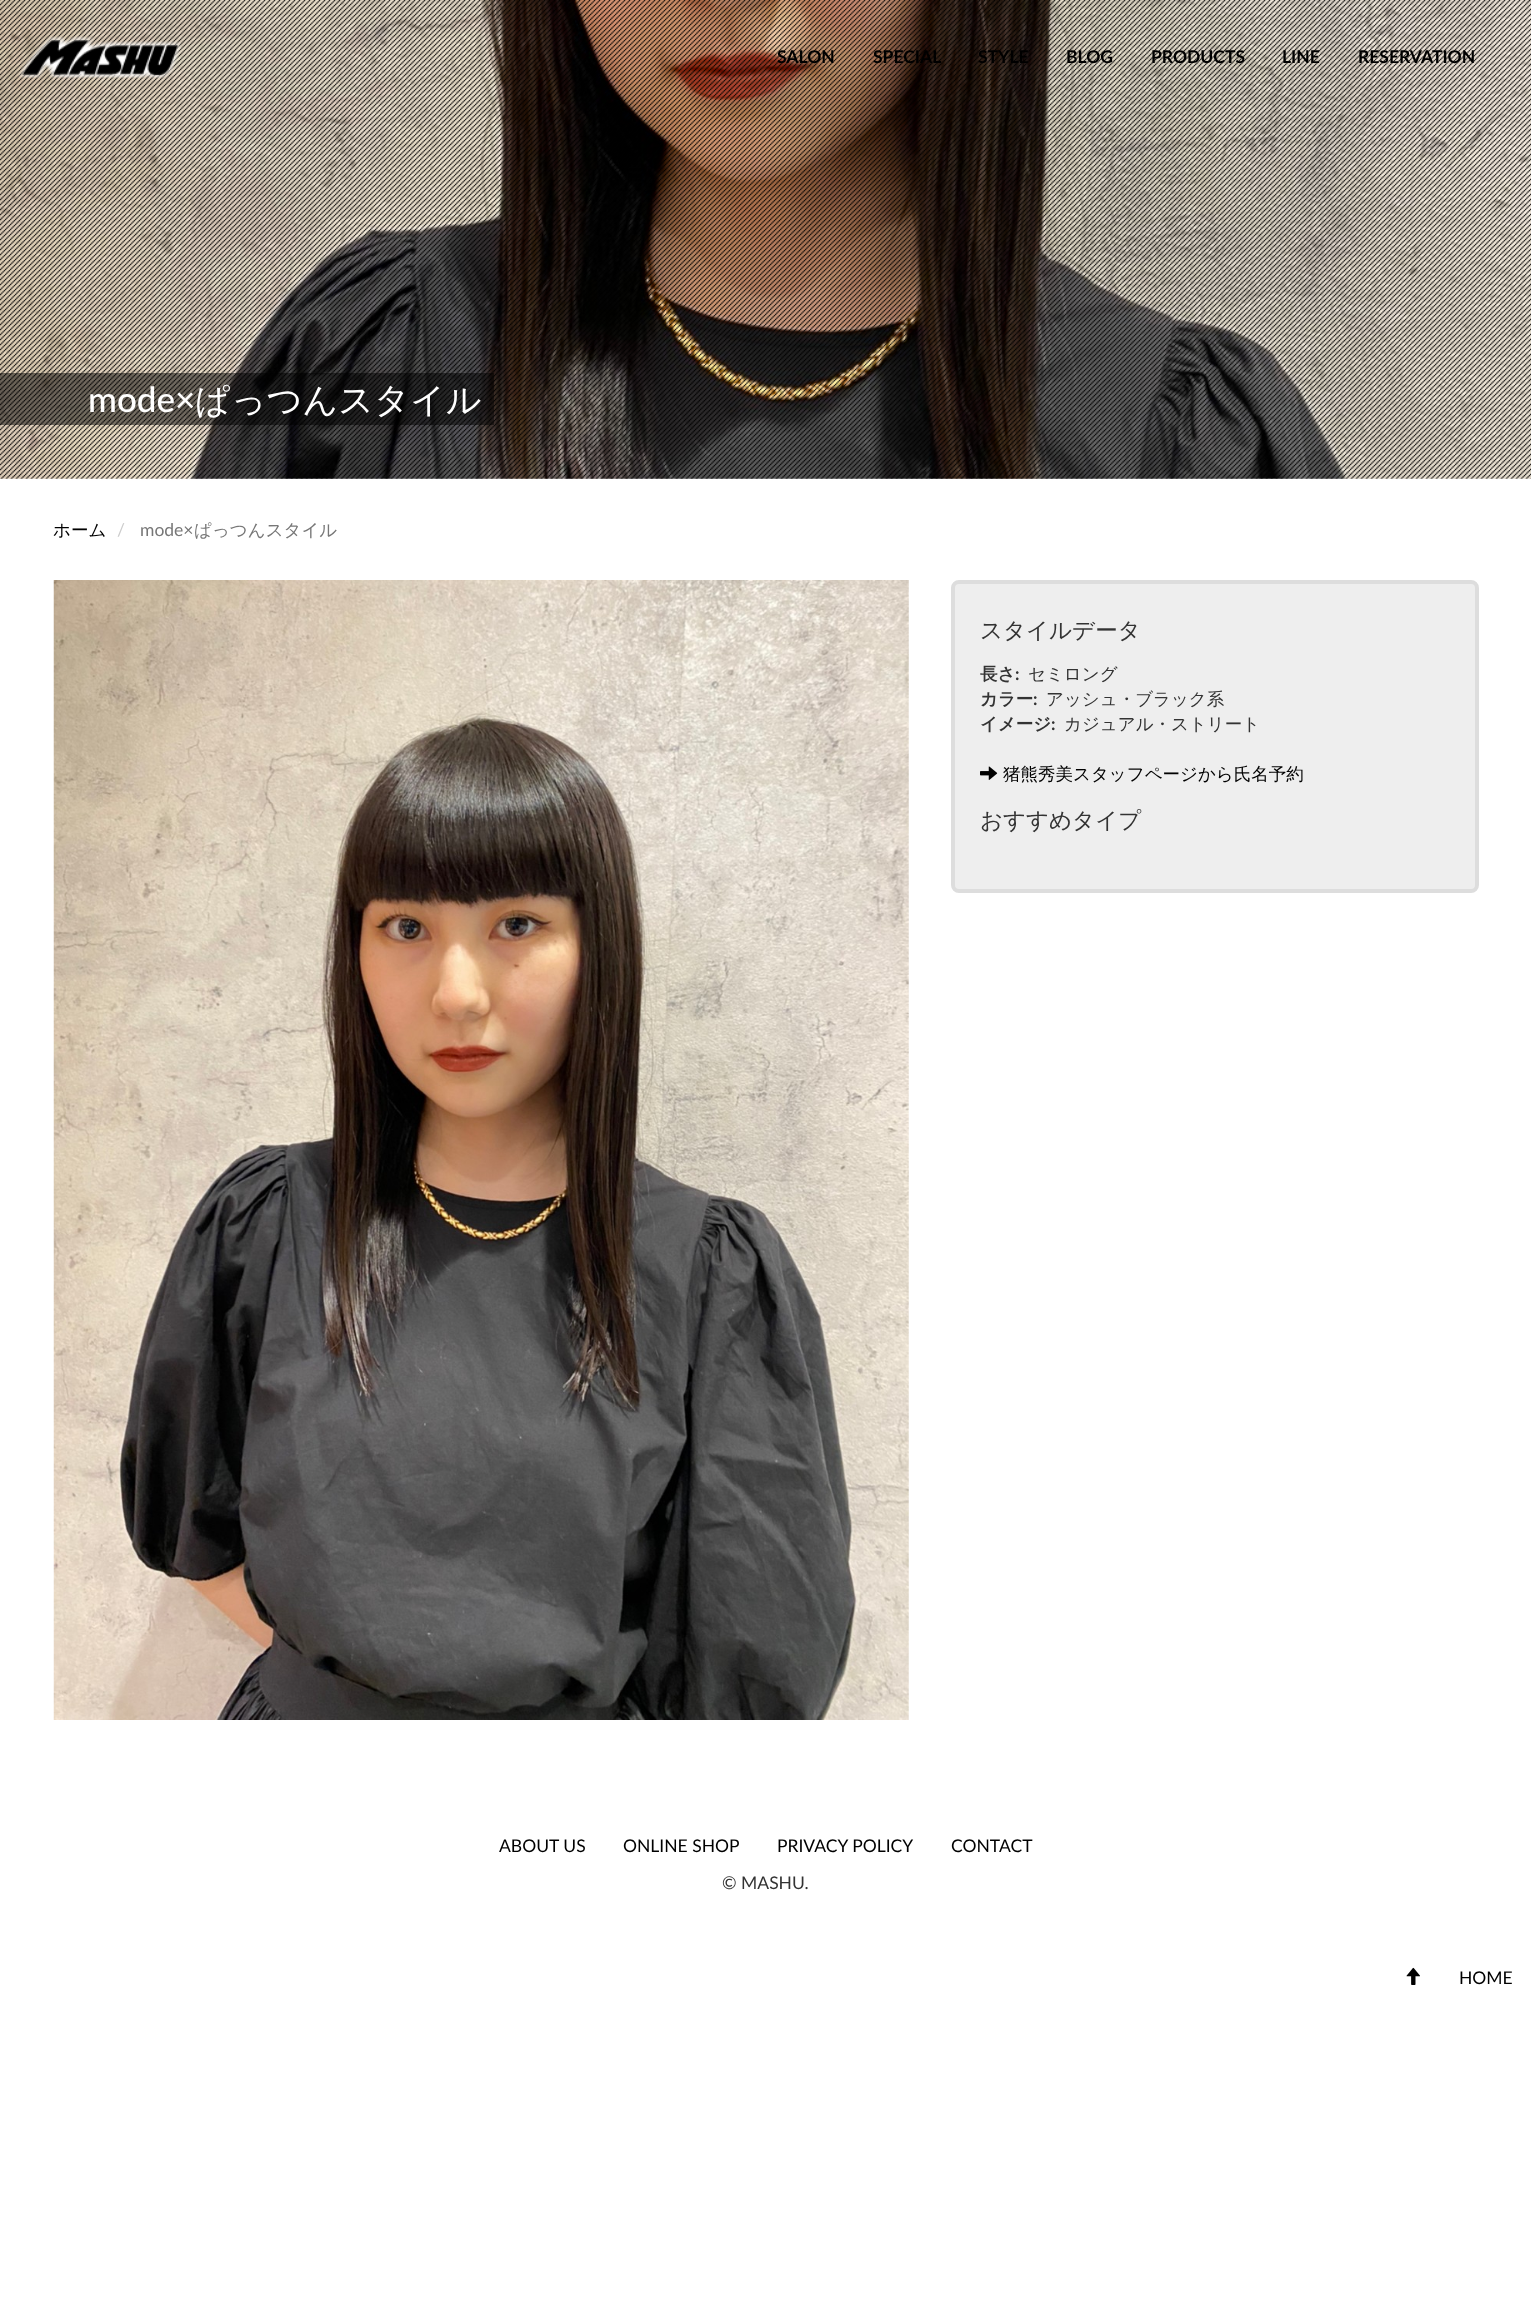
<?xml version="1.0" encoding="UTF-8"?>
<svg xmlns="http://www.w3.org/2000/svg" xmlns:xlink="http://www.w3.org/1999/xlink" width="1531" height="2300">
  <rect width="100%" height="100%" fill="#ffffff" />
  <image x="0" y="0" width="1531" height="479" xlink:href="image2.png" />
  <image x="0" y="0" width="1531" height="479" xlink:href="image3.png" />
  <image x="18" y="36" width="164" height="42" xlink:href="image1.png" />
  <rect y="373" width="494" height="52" fill="#000000" fill-opacity="0.5" />
  <image x="53" y="580" width="856" height="1140" xlink:href="image4.png" />
  <rect x="953" y="582" width="524" height="309" rx="6" fill="#eeeeee" stroke="#dddddd" stroke-width="4" />
  <image x="980" y="766" width="18" height="14" xlink:href="image5.png" />
  <image x="1406" y="1967" width="14" height="18" xlink:href="image6.png" />
  <text x="777" y="63" style="font-family: Lato; font-size: 17.5px; font-weight: bold; fill: #000000">SALON</text>
  <text x="873" y="63" style="font-family: Lato; font-size: 17.5px; font-weight: bold; fill: #000000">SPECIAL</text>
  <text x="978" y="63" style="font-family: Lato; font-size: 17.5px; font-weight: bold; fill: #000000">STYLE</text>
  <text x="1066" y="63" style="font-family: Lato; font-size: 17.5px; font-weight: bold; fill: #000000">BLOG</text>
  <text x="1151" y="63" style="font-family: Lato; font-size: 17.5px; font-weight: bold; fill: #000000">PRODUCTS</text>
  <text x="1282" y="63" style="font-family: Lato; font-size: 17.5px; font-weight: bold; fill: #000000">LINE</text>
  <text x="1358" y="63" style="font-family: Lato; font-size: 17.5px; font-weight: bold; fill: #000000">RESERVATION</text>
  <text x="88" y="412" style="font-family: Lato; font-size: 35px; font-weight: 500; fill: #ffffff">mode×</text>
  <text x="195" y="412" style="font-family: WenQuanYi Zen Hei; font-size: 35px; font-weight: 500; fill: #ffffff">ぱっつんスタイル</text>
  <text x="53" y="536" style="font-family: WenQuanYi Zen Hei; font-size: 17.5px; font-weight: 500; fill: #000000">ホーム</text>
  <text x="117" y="536" style="font-family: Lato; font-size: 17.5px; fill: #cccccc">/</text>
  <text x="140" y="536" style="font-family: Lato; font-size: 17.5px; fill: #777777">mode×</text>
  <text x="194" y="536" style="font-family: WenQuanYi Zen Hei; font-size: 17.5px; font-weight: 500; fill: #777777">ぱっつんスタイル</text>
  <text x="980" y="638" style="font-family: WenQuanYi Zen Hei; font-size: 22.5px; font-weight: 500; fill: #333333">スタイルデータ</text>
  <text x="980" y="680" style="font-family: WenQuanYi Zen Hei; font-size: 17.5px; font-weight: bold; fill: #333333">長さ</text>
  <text x="1015" y="680" style="font-family: Lato; font-size: 17.5px; font-weight: bold; fill: #333333">:</text>
  <text x="1028" y="680" style="font-family: WenQuanYi Zen Hei; font-size: 17.5px; font-weight: 500; fill: #333333">セミロング</text>
  <text x="980" y="705" style="font-family: WenQuanYi Zen Hei; font-size: 17.5px; font-weight: bold; fill: #333333">カラー</text>
  <text x="1033" y="705" style="font-family: Lato; font-size: 17.5px; font-weight: bold; fill: #333333">:</text>
  <text x="1046" y="705" style="font-family: WenQuanYi Zen Hei; font-size: 17.5px; font-weight: 500; fill: #333333">アッシュ・ブラック系</text>
  <text x="980" y="730" style="font-family: WenQuanYi Zen Hei; font-size: 17.5px; font-weight: bold; fill: #333333">イメージ</text>
  <text x="1051" y="730" style="font-family: Lato; font-size: 17.5px; font-weight: bold; fill: #333333">:</text>
  <text x="1064" y="730" style="font-family: WenQuanYi Zen Hei; font-size: 17.5px; font-weight: 500; fill: #333333">カジュアル・ストリート</text>
  <text x="1003" y="780" style="font-family: WenQuanYi Zen Hei; font-size: 17.5px; font-weight: 500; fill: #000000">猪熊秀美スタッフページから氏名予約</text>
  <text x="980" y="828" style="font-family: WenQuanYi Zen Hei; font-size: 22.5px; font-weight: 500; fill: #333333">おすすめタイプ</text>
  <text x="499" y="1852" style="font-family: Lato; font-size: 17.5px; fill: #000000">ABOUT US</text>
  <text x="623" y="1852" style="font-family: Lato; font-size: 17.5px; fill: #000000">ONLINE SHOP</text>
  <text x="777" y="1852" style="font-family: Lato; font-size: 17.5px; fill: #000000">PRIVACY POLICY</text>
  <text x="951" y="1852" style="font-family: Lato; font-size: 17.5px; fill: #000000">CONTACT</text>
  <text x="722" y="1889" style="font-family: Lato; font-size: 17.5px; fill: #333333">© MASHU.</text>
  <text x="1459" y="1984" style="font-family: Lato; font-size: 17.5px; fill: #000000">HOME</text>
</svg>
